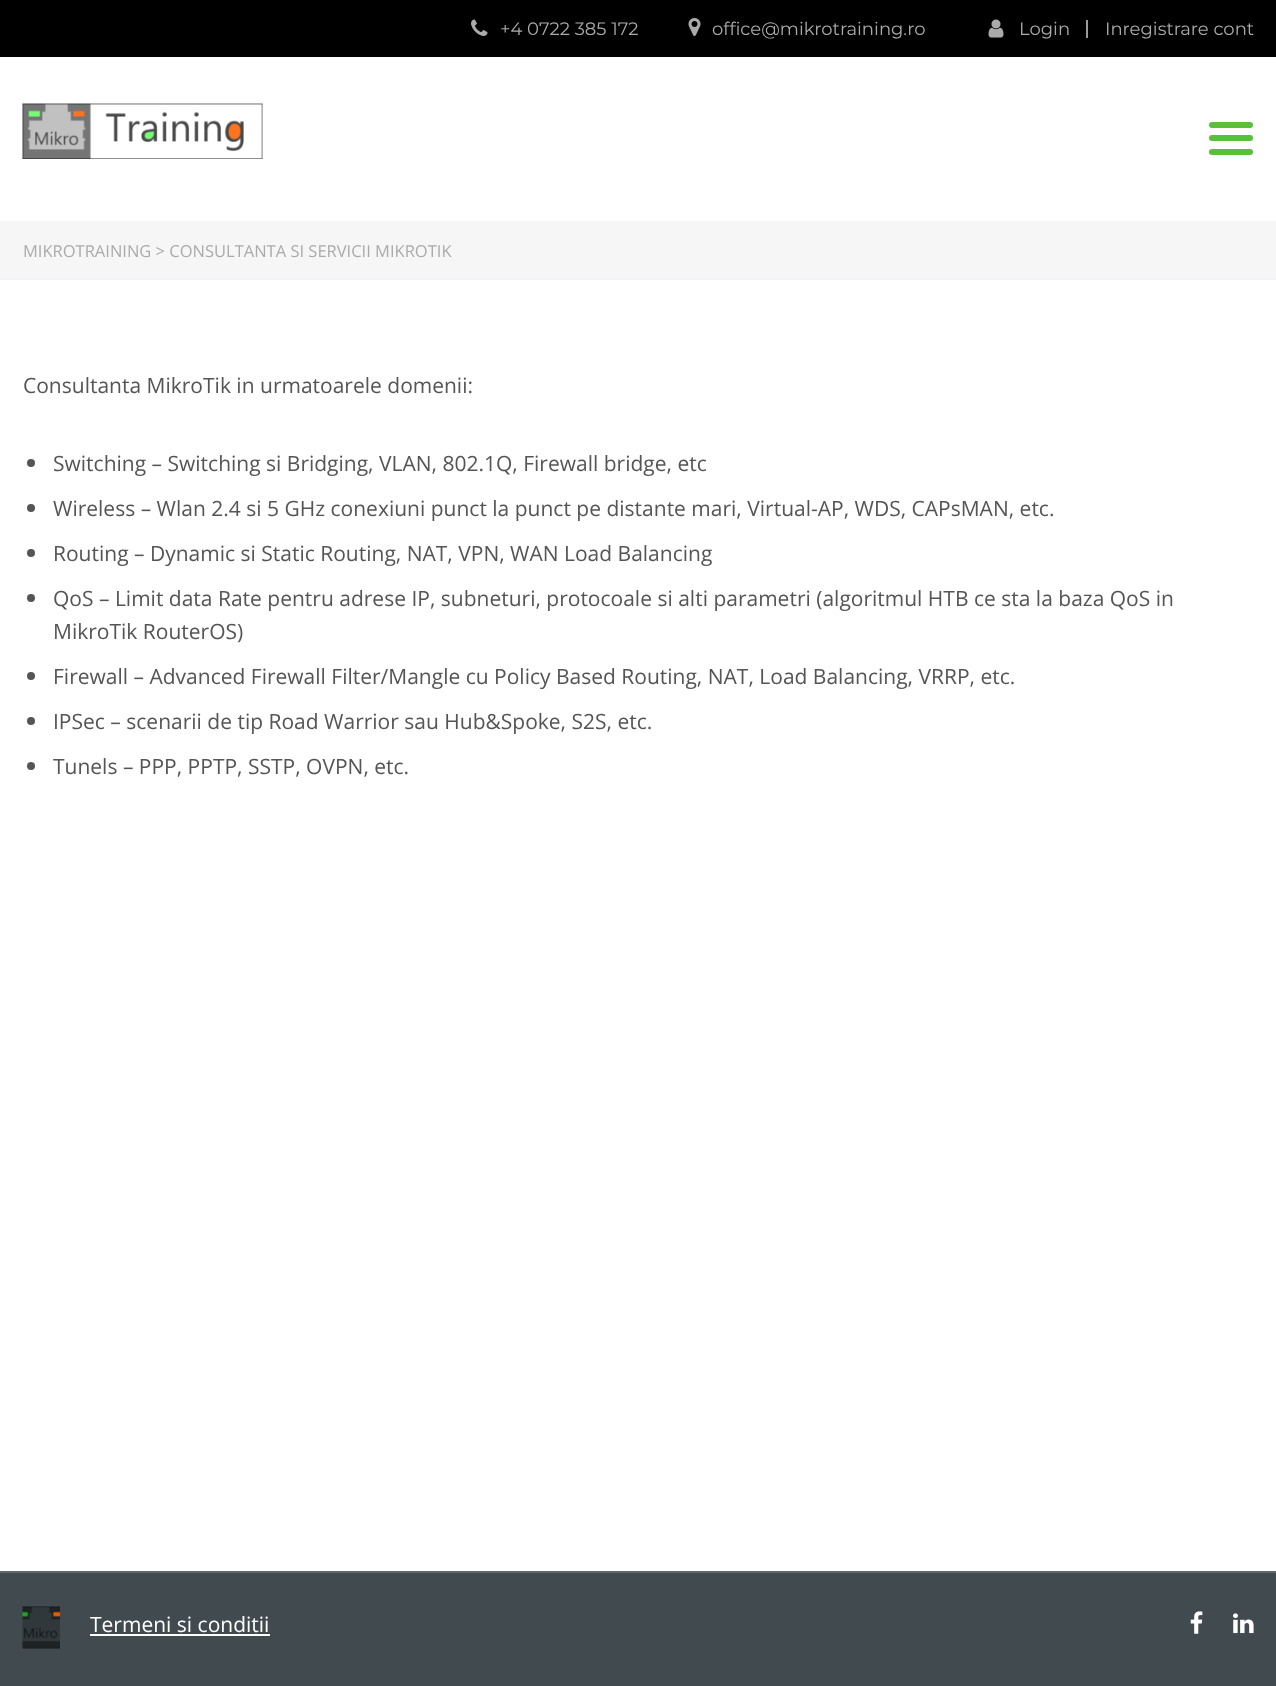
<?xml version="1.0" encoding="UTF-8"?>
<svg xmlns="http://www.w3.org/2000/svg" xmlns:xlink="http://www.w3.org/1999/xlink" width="1276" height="1686">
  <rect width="100%" height="100%" fill="#ffffff" />
  <rect width="1276" height="57" fill="#000000" />
  <image x="471" y="19" width="17" height="17" xlink:href="image1.png" />
  <image x="688" y="18" width="13" height="18" xlink:href="image2.png" />
  <image x="988" y="19" width="16" height="19" xlink:href="image3.png" />
  <rect x="1086" y="20" width="2" height="18" fill="#9a9a9a" />
  <image x="22" y="103" width="241" height="56" xlink:href="image4.png" />
  <rect x="1209" y="122" width="44" height="6" rx="3" fill="#5abf3b" />
  <rect x="1209" y="135" width="44" height="6" rx="3" fill="#5abf3b" />
  <rect x="1209" y="149" width="44" height="6" rx="3" fill="#5abf3b" />
  <rect y="221" width="1276" height="57" fill="#f6f6f6" />
  <rect y="278" width="1276" height="2" fill="#f0f2f5" />
  <circle cx="31" cy="463" r="4" fill="#555555" />
  <circle cx="31" cy="508" r="4" fill="#555555" />
  <circle cx="31" cy="553" r="4" fill="#555555" />
  <circle cx="31" cy="598" r="4" fill="#555555" />
  <circle cx="31" cy="676" r="4" fill="#555555" />
  <circle cx="31" cy="721" r="4" fill="#555555" />
  <circle cx="31" cy="766" r="4" fill="#555555" />
  <rect y="1573" width="1276" height="113" fill="#414b4f" />
  <rect y="1571" width="1276" height="2" fill="#5e676b" />
  <image x="22" y="1606" width="38" height="43" xlink:href="image5.png" />
  <rect x="90" y="1634" width="180" height="2" fill="#ffffff" />
  <image x="1190" y="1611" width="13" height="23" xlink:href="image6.png" />
  <image x="1233" y="1613" width="21" height="21" xlink:href="image7.png" />
  <text x="500" y="35" style="font-family: Montserrat; font-size: 18px; fill: #aaaaaa">+4 0722 385 172</text>
  <text x="712" y="35" style="font-family: Montserrat; font-size: 18px; fill: #aaaaaa">office@mikrotraining.ro</text>
  <text x="1019" y="35" style="font-family: Montserrat; font-size: 18px; fill: #aaaaaa">Login</text>
  <text x="1105" y="35" style="font-family: Montserrat; font-size: 18px; fill: #aaaaaa">Inregistrare cont</text>
  <text x="23" y="257" style="font-family: Open Sans; font-size: 16.5px; fill: #aaaaaa">MIKROTRAINING &gt; CONSULTANTA SI SERVICII MIKROTIK</text>
  <text x="23" y="393" style="font-family: Open Sans; font-size: 21px; fill: #555555">Consultanta MikroTik in urmatoarele domenii:</text>
  <text x="53" y="471" style="font-family: Open Sans; font-size: 21px; fill: #555555">Switching – Switching si Bridging, VLAN, 802.1Q, Firewall bridge, etc</text>
  <text x="53" y="516" style="font-family: Open Sans; font-size: 21px; fill: #555555">Wireless – Wlan 2.4 si 5 GHz conexiuni punct la punct pe distante mari, Virtual-AP, WDS, CAPsMAN, etc.</text>
  <text x="53" y="561" style="font-family: Open Sans; font-size: 21px; fill: #555555">Routing – Dynamic si Static Routing, NAT, VPN, WAN Load Balancing</text>
  <text x="53" y="606" style="font-family: Open Sans; font-size: 21px; fill: #555555">QoS – Limit data Rate pentru adrese IP, subneturi, protocoale si alti parametri (algoritmul HTB ce sta la baza QoS in</text>
  <text x="53" y="639" style="font-family: Open Sans; font-size: 21px; fill: #555555">MikroTik RouterOS)</text>
  <text x="53" y="684" style="font-family: Open Sans; font-size: 21px; fill: #555555">Firewall – Advanced Firewall Filter/Mangle cu Policy Based Routing, NAT, Load Balancing, VRRP, etc.</text>
  <text x="53" y="729" style="font-family: Open Sans; font-size: 21px; fill: #555555">IPSec – scenarii de tip Road Warrior sau Hub&amp;Spoke, S2S, etc.</text>
  <text x="53" y="774" style="font-family: Open Sans; font-size: 21px; fill: #555555">Tunels – PPP, PPTP, SSTP, OVPN, etc.</text>
  <text x="90" y="1632" style="font-family: Open Sans; font-size: 21px; fill: #ffffff">Termeni si conditii</text>
</svg>
